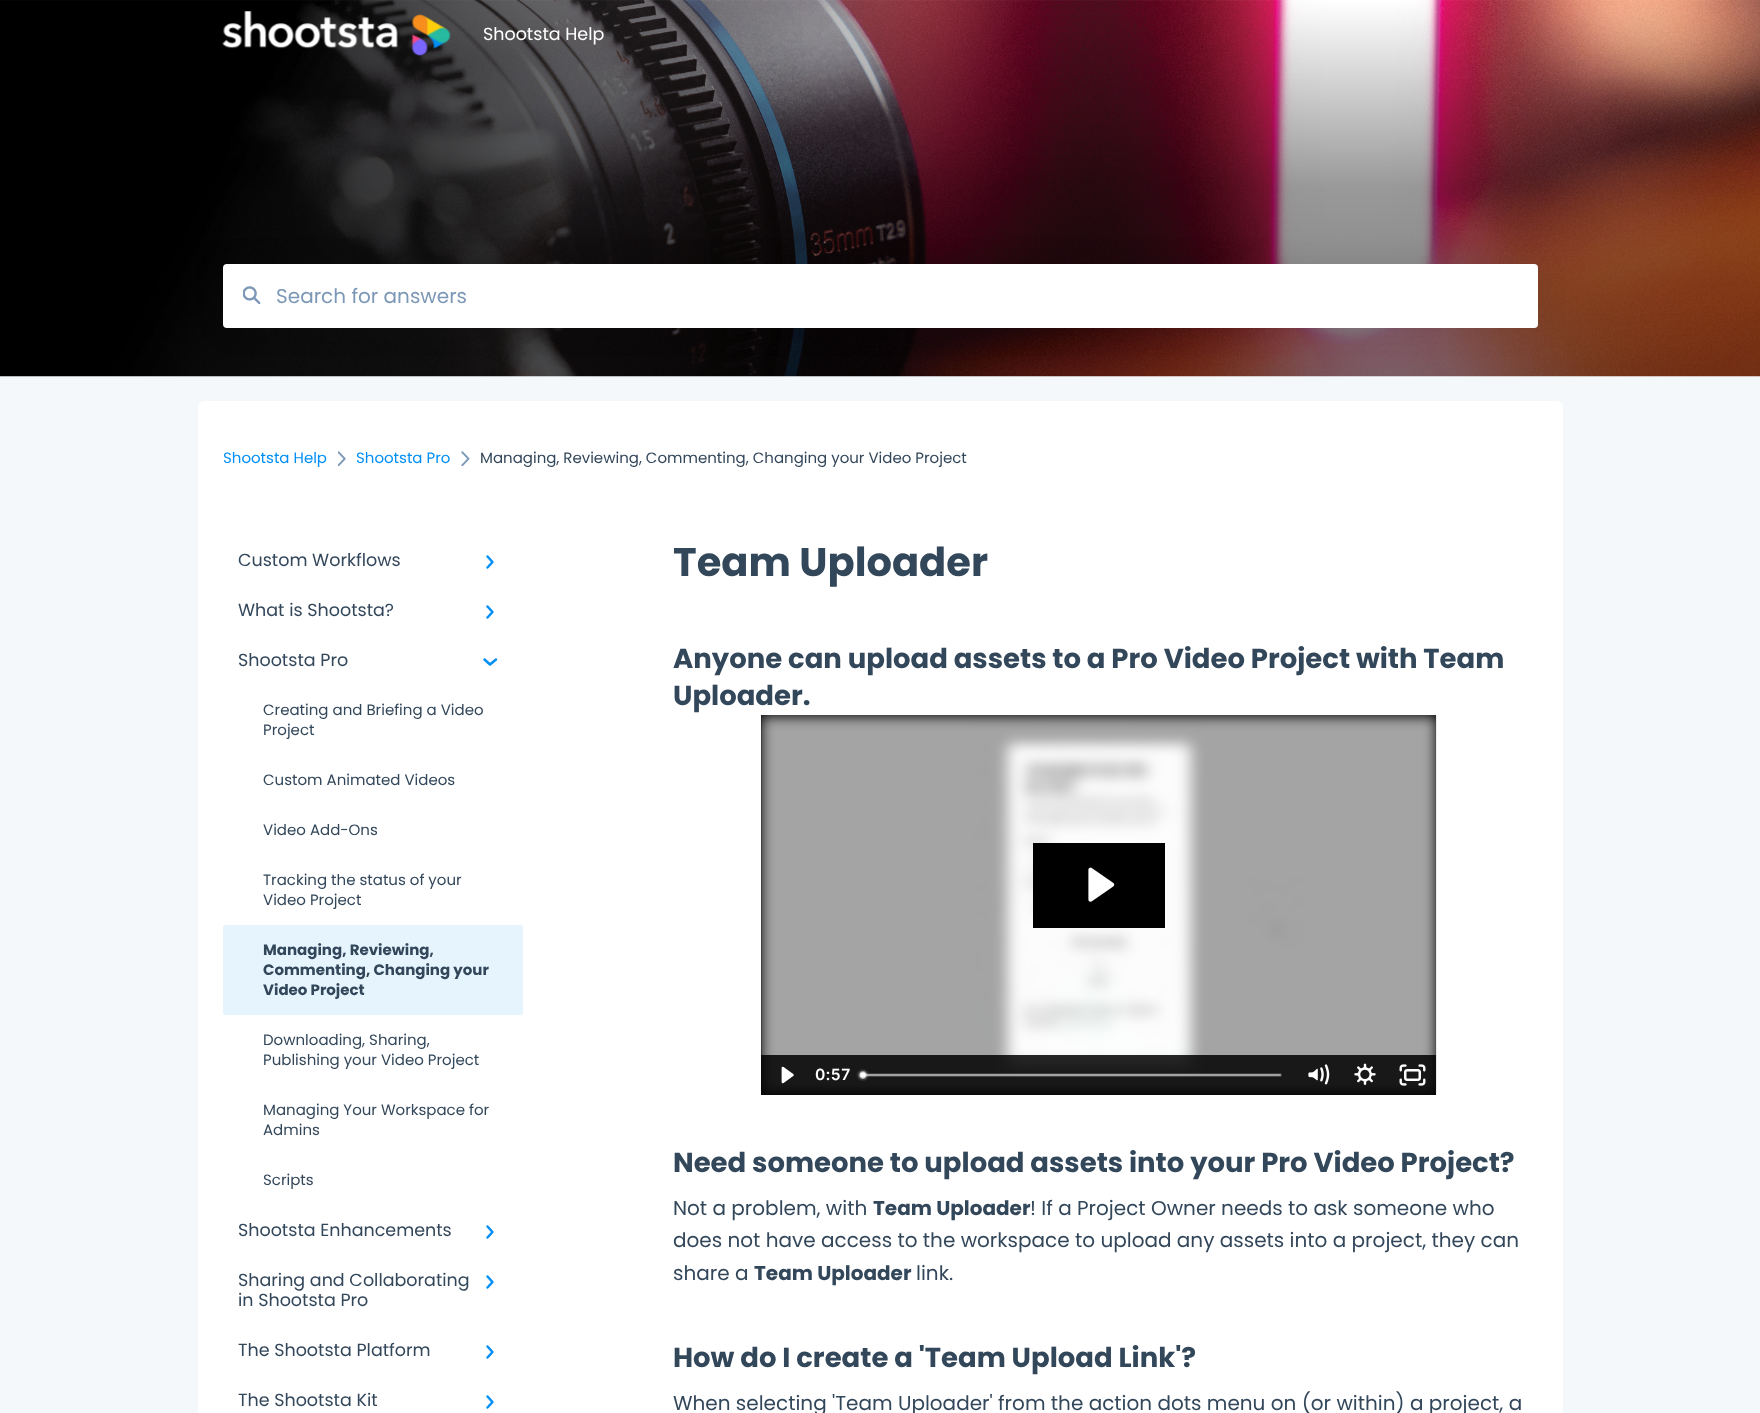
<?xml version="1.0" encoding="UTF-8"?>
<svg xmlns="http://www.w3.org/2000/svg" xmlns:xlink="http://www.w3.org/1999/xlink" width="1760" height="1413">
  <rect width="100%" height="100%" fill="#f5f8fa" />
  <image x="0" y="0" width="1760" height="377" xlink:href="image2.png" />
  <image x="222" y="11" width="229" height="45" xlink:href="image1.png" />
  <rect x="223" y="265" width="1315" height="64" rx="4" fill="#000000" fill-opacity="0.08" filter="blur(15px)" />
  <rect x="223" y="264" width="1315" height="64" rx="4" fill="#ffffff" />
  <image x="243" y="286" width="18" height="19" xlink:href="image3.png" />
  <rect x="198" y="401" width="1365" height="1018" rx="6" fill="#ffffff" />
  <image x="338" y="451" width="8" height="15" xlink:href="image4.png" />
  <image x="461" y="451" width="9" height="15" xlink:href="image5.png" />
  <path d="M 487.5 556.5 l 5 5.5 l -5 5.5" fill="none" stroke="#028ff5" stroke-width="2.5" stroke-linecap="round" stroke-linejoin="round" />
  <path d="M 487.5 606.5 l 5 5.5 l -5 5.5" fill="none" stroke="#028ff5" stroke-width="2.5" stroke-linecap="round" stroke-linejoin="round" />
  <path d="M 496 659.5 l -6 5 l -5.5 -5" fill="none" stroke="#028ff5" stroke-width="2.5" stroke-linecap="round" stroke-linejoin="round" />
  <rect x="223" y="925" width="300" height="90" rx="2.5" fill="#e6f4fe" />
  <path d="M 487.5 1226.5 l 5 5.5 l -5 5.5" fill="none" stroke="#028ff5" stroke-width="2.5" stroke-linecap="round" stroke-linejoin="round" />
  <path d="M 487.5 1276.5 l 5 5.5 l -5 5.5" fill="none" stroke="#028ff5" stroke-width="2.5" stroke-linecap="round" stroke-linejoin="round" />
  <path d="M 487.5 1346.5 l 5 5.5 l -5 5.5" fill="none" stroke="#028ff5" stroke-width="2.5" stroke-linecap="round" stroke-linejoin="round" />
  <path d="M 487.5 1396.5 l 5 5.5 l -5 5.5" fill="none" stroke="#028ff5" stroke-width="2.5" stroke-linecap="round" stroke-linejoin="round" />
  <rect x="761" y="715" width="675" height="380" fill="#000000" />
  <image x="1436" y="715" width="1" height="380" xlink:href="image13.png" />
  <image x="761" y="715" width="676" height="380" xlink:href="image6.png" />
  <rect x="1033" y="843" width="132" height="85" fill="#000000" />
  <image x="1088" y="867" width="27" height="35" xlink:href="image7.png" />
  <rect x="761" y="1055" width="675" height="40" fill="#000000" fill-opacity="0.85" />
  <image x="781" y="1066" width="13" height="18" xlink:href="image8.png" />
  <image x="856" y="1069" width="426" height="12" xlink:href="image9.png" />
  <image x="1308" y="1064" width="22" height="21" xlink:href="image10.png" />
  <image x="1354" y="1063" width="22" height="22" xlink:href="image11.png" />
  <image x="1399" y="1064" width="27" height="22" xlink:href="image12.png" />
  <text x="483" y="40" style="font-family: Poppins; font-size: 17.5px; fill: #ffffff">Shootsta Help</text>
  <text x="276" y="303" style="font-family: Poppins; font-size: 20px; fill: #7c98b6">Search for answers</text>
  <text x="223" y="463" style="font-family: Poppins; font-size: 15px; fill: #028ff5">Shootsta Help</text>
  <text x="356" y="463" style="font-family: Poppins; font-size: 15px; fill: #028ff5">Shootsta Pro</text>
  <text x="480" y="463" style="font-family: Poppins; font-size: 15px; fill: #33475b">Managing, Reviewing, Commenting, Changing your Video Project</text>
  <text x="238" y="566" style="font-family: Poppins; font-size: 17.5px; fill: #33475b">Custom Workflows</text>
  <text x="238" y="616" style="font-family: Poppins; font-size: 17.5px; fill: #33475b">What is Shootsta?</text>
  <text x="238" y="666" style="font-family: Poppins; font-size: 17.5px; fill: #33475b">Shootsta Pro</text>
  <text x="263" y="715" style="font-family: Poppins; font-size: 15px; fill: #33475b">Creating and Briefing a Video</text>
  <text x="263" y="735" style="font-family: Poppins; font-size: 15px; fill: #33475b">Project</text>
  <text x="263" y="785" style="font-family: Poppins; font-size: 15px; fill: #33475b">Custom Animated Videos</text>
  <text x="263" y="835" style="font-family: Poppins; font-size: 15px; fill: #33475b">Video Add-Ons</text>
  <text x="263" y="885" style="font-family: Poppins; font-size: 15px; fill: #33475b">Tracking the status of your</text>
  <text x="263" y="905" style="font-family: Poppins; font-size: 15px; fill: #33475b">Video Project</text>
  <text x="263" y="955" style="font-family: Poppins; font-size: 15px; font-weight: bold; fill: #33475b">Managing, Reviewing,</text>
  <text x="263" y="975" style="font-family: Poppins; font-size: 15px; font-weight: bold; fill: #33475b">Commenting, Changing your</text>
  <text x="263" y="995" style="font-family: Poppins; font-size: 15px; font-weight: bold; fill: #33475b">Video Project</text>
  <text x="263" y="1045" style="font-family: Poppins; font-size: 15px; fill: #33475b">Downloading, Sharing,</text>
  <text x="263" y="1065" style="font-family: Poppins; font-size: 15px; fill: #33475b">Publishing your Video Project</text>
  <text x="263" y="1115" style="font-family: Poppins; font-size: 15px; fill: #33475b">Managing Your Workspace for</text>
  <text x="263" y="1135" style="font-family: Poppins; font-size: 15px; fill: #33475b">Admins</text>
  <text x="263" y="1185" style="font-family: Poppins; font-size: 15px; fill: #33475b">Scripts</text>
  <text x="238" y="1236" style="font-family: Poppins; font-size: 17.5px; fill: #33475b">Shootsta Enhancements</text>
  <text x="238" y="1286" style="font-family: Poppins; font-size: 17.5px; fill: #33475b">Sharing and Collaborating</text>
  <text x="238" y="1306" style="font-family: Poppins; font-size: 17.5px; fill: #33475b">in Shootsta Pro</text>
  <text x="238" y="1356" style="font-family: Poppins; font-size: 17.5px; fill: #33475b">The Shootsta Platform</text>
  <text x="238" y="1406" style="font-family: Poppins; font-size: 17.5px; fill: #33475b">The Shootsta Kit</text>
  <text x="673" y="576" style="font-family: Poppins; font-size: 40px; font-weight: bold; fill: #33475b">Team Uploader</text>
  <text x="673" y="668" style="font-family: Poppins; font-size: 27.5px; font-weight: bold; fill: #33475b">Anyone can upload assets to a Pro Video Project with Team</text>
  <text x="673" y="705" style="font-family: Poppins; font-size: 27.5px; font-weight: bold; fill: #33475b">Uploader.</text>
  <text x="815" y="1080" style="font-family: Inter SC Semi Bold; font-size: 15.5px; font-weight: 600; letter-spacing: 0.5px; fill: #ffffff">0:57</text>
  <text x="673" y="1172" style="font-family: Poppins; font-size: 27.5px; font-weight: bold; fill: #33475b">Need someone to upload assets into your Pro Video Project?</text>
  <text x="673" y="1215" style="font-family: Poppins; font-size: 20px; fill: #33475b">Not a problem, with</text>
  <text x="873" y="1215" style="font-family: Poppins; font-size: 20px; font-weight: bold; fill: #33475b">Team Uploader</text>
  <text x="1030" y="1215" style="font-family: Poppins; font-size: 20px; fill: #33475b">! If a Project Owner needs to ask someone who</text>
  <text x="673" y="1247" style="font-family: Poppins; font-size: 20px; fill: #33475b">does not have access to the workspace to upload any assets into a project, they can</text>
  <text x="673" y="1280" style="font-family: Poppins; font-size: 20px; fill: #33475b">share a</text>
  <text x="754" y="1280" style="font-family: Poppins; font-size: 20px; font-weight: bold; fill: #33475b">Team Uploader</text>
  <text x="916" y="1280" style="font-family: Poppins; font-size: 20px; fill: #33475b">link.</text>
  <text x="673" y="1367" style="font-family: Poppins; font-size: 27.5px; font-weight: bold; fill: #33475b">How do I create a 'Team Upload Link'?</text>
  <text x="673" y="1410" style="font-family: Poppins; font-size: 20px; fill: #33475b">When selecting 'Team Uploader' from the action dots menu on (or within) a project, a</text>
</svg>
